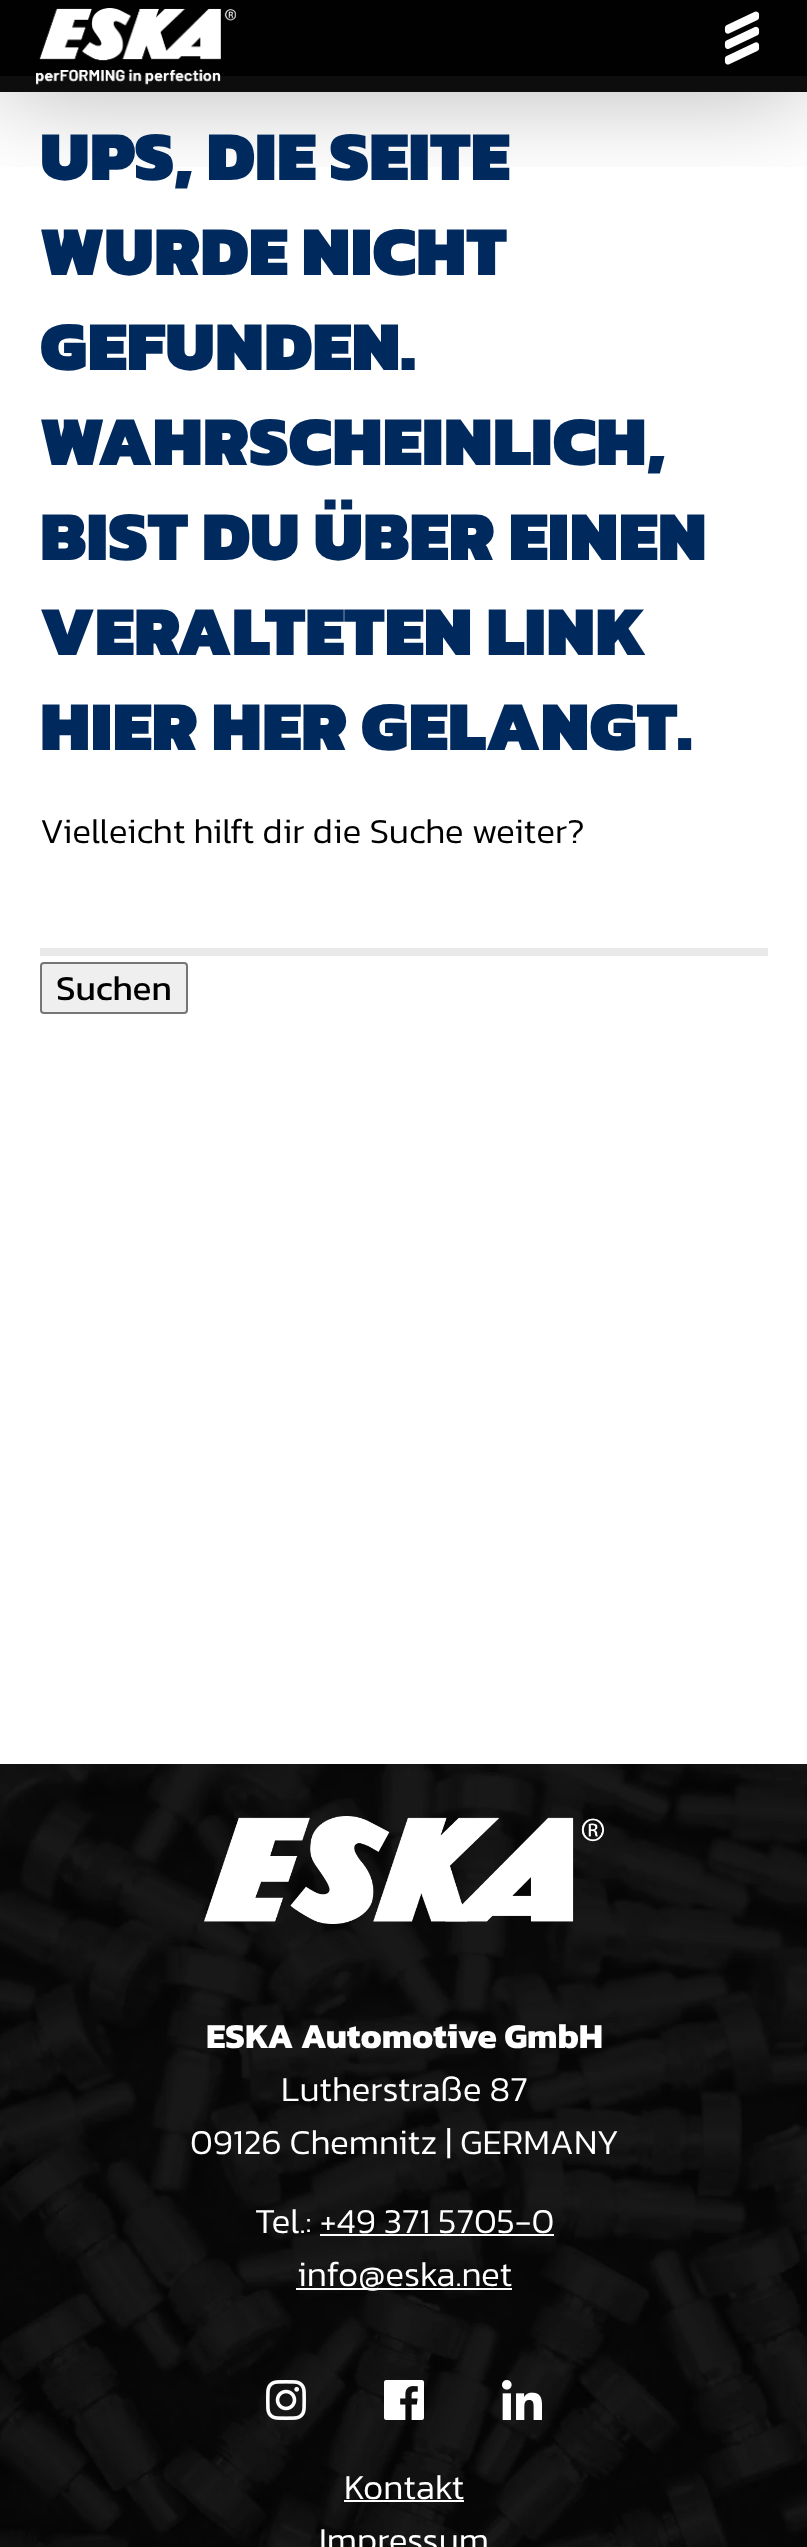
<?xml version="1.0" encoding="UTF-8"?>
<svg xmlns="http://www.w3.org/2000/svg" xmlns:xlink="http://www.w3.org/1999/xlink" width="807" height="2547">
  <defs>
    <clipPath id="clip1"><rect x="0" y="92" width="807" height="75" /></clipPath>
  </defs>
  <rect width="100%" height="100%" fill="#ffffff" />
  <rect y="76" width="807" height="16" fill="#0d0d0d" />
  <rect width="807" height="76" fill="#010101" />
  <g clip-path="url(#clip1)">
    <rect width="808" height="92" fill="#000000" fill-opacity="0.3" filter="blur(50px)" />
  </g>
  <image x="36" y="8" width="200" height="77" xlink:href="image1.png" />
  <image x="724" y="11" width="36" height="54" xlink:href="image2.png" />
  <rect x="40" y="948" width="728" height="8" fill="#e9e9e9" />
  <rect x="41" y="963" width="146" height="50" rx="3" fill="#efefef" stroke="#767676" stroke-width="2" />
  <image x="0" y="1764" width="807" height="783" xlink:href="image3.png" />
  <image x="204" y="1816" width="400" height="108" xlink:href="image4.png" />
  <rect x="320" y="2234" width="234" height="2" fill="#ffffff" />
  <rect x="296" y="2288" width="216" height="2" fill="#ffffff" />
  <image x="266" y="2380" width="40" height="40" xlink:href="image5.png" />
  <image x="384" y="2380" width="40" height="40" xlink:href="image6.png" />
  <image x="502" y="2380" width="40" height="40" xlink:href="image7.png" />
  <rect x="344" y="2500" width="120" height="2" fill="#ffffff" />
  <text x="40" y="180" style="font-family: Kanit; font-size: 70.5px; font-weight: 900; fill: #002a5e">UPS, DIE SEITE</text>
  <text x="40" y="275" style="font-family: Kanit; font-size: 70.5px; font-weight: 900; fill: #002a5e">WURDE NICHT</text>
  <text x="40" y="370" style="font-family: Kanit; font-size: 70.5px; font-weight: 900; fill: #002a5e">GEFUNDEN.</text>
  <text x="40" y="465" style="font-family: Kanit; font-size: 70.5px; font-weight: 900; fill: #002a5e">WAHRSCHEINLICH,</text>
  <text x="40" y="560" style="font-family: Kanit; font-size: 70.5px; font-weight: 900; fill: #002a5e">BIST DU ÜBER EINEN</text>
  <text x="40" y="655" style="font-family: Kanit; font-size: 70.5px; font-weight: 900; fill: #002a5e">VERALTETEN LINK</text>
  <text x="40" y="750" style="font-family: Kanit; font-size: 70.5px; font-weight: 900; fill: #002a5e">HIER HER GELANGT.</text>
  <text x="40" y="843" style="font-family: Kanit; font-size: 35.25px; font-weight: 300; fill: #000000">Vielleicht hilft dir die Suche weiter?</text>
  <text x="56" y="1000" style="font-family: Kanit; font-size: 35.25px; fill: #000000">Suchen</text>
  <text x="206" y="2048" style="font-family: Kanit; font-size: 35.25px; font-weight: bold; fill: #ffffff">ESKA Automotive GmbH</text>
  <text x="281" y="2101" style="font-family: Kanit; font-size: 35.25px; font-weight: 300; fill: #ffffff">Lutherstraße 87</text>
  <text x="190" y="2154" style="font-family: Kanit; font-size: 35.25px; font-weight: 300; fill: #ffffff">09126 Chemnitz | GERMANY</text>
  <text x="255" y="2233" style="font-family: Kanit; font-size: 35.25px; font-weight: 300; fill: #ffffff">Tel.: +49 371 5705-0</text>
  <text x="297" y="2286" style="font-family: Kanit; font-size: 35.25px; font-weight: 300; fill: #ffffff">info@eska.net</text>
  <text x="344" y="2499" style="font-family: Kanit; font-size: 35.25px; font-weight: 300; fill: #ffffff">Kontakt</text>
  <text x="319" y="2552" style="font-family: Kanit; font-size: 35.25px; font-weight: 300; fill: #ffffff">Impressum</text>
</svg>
